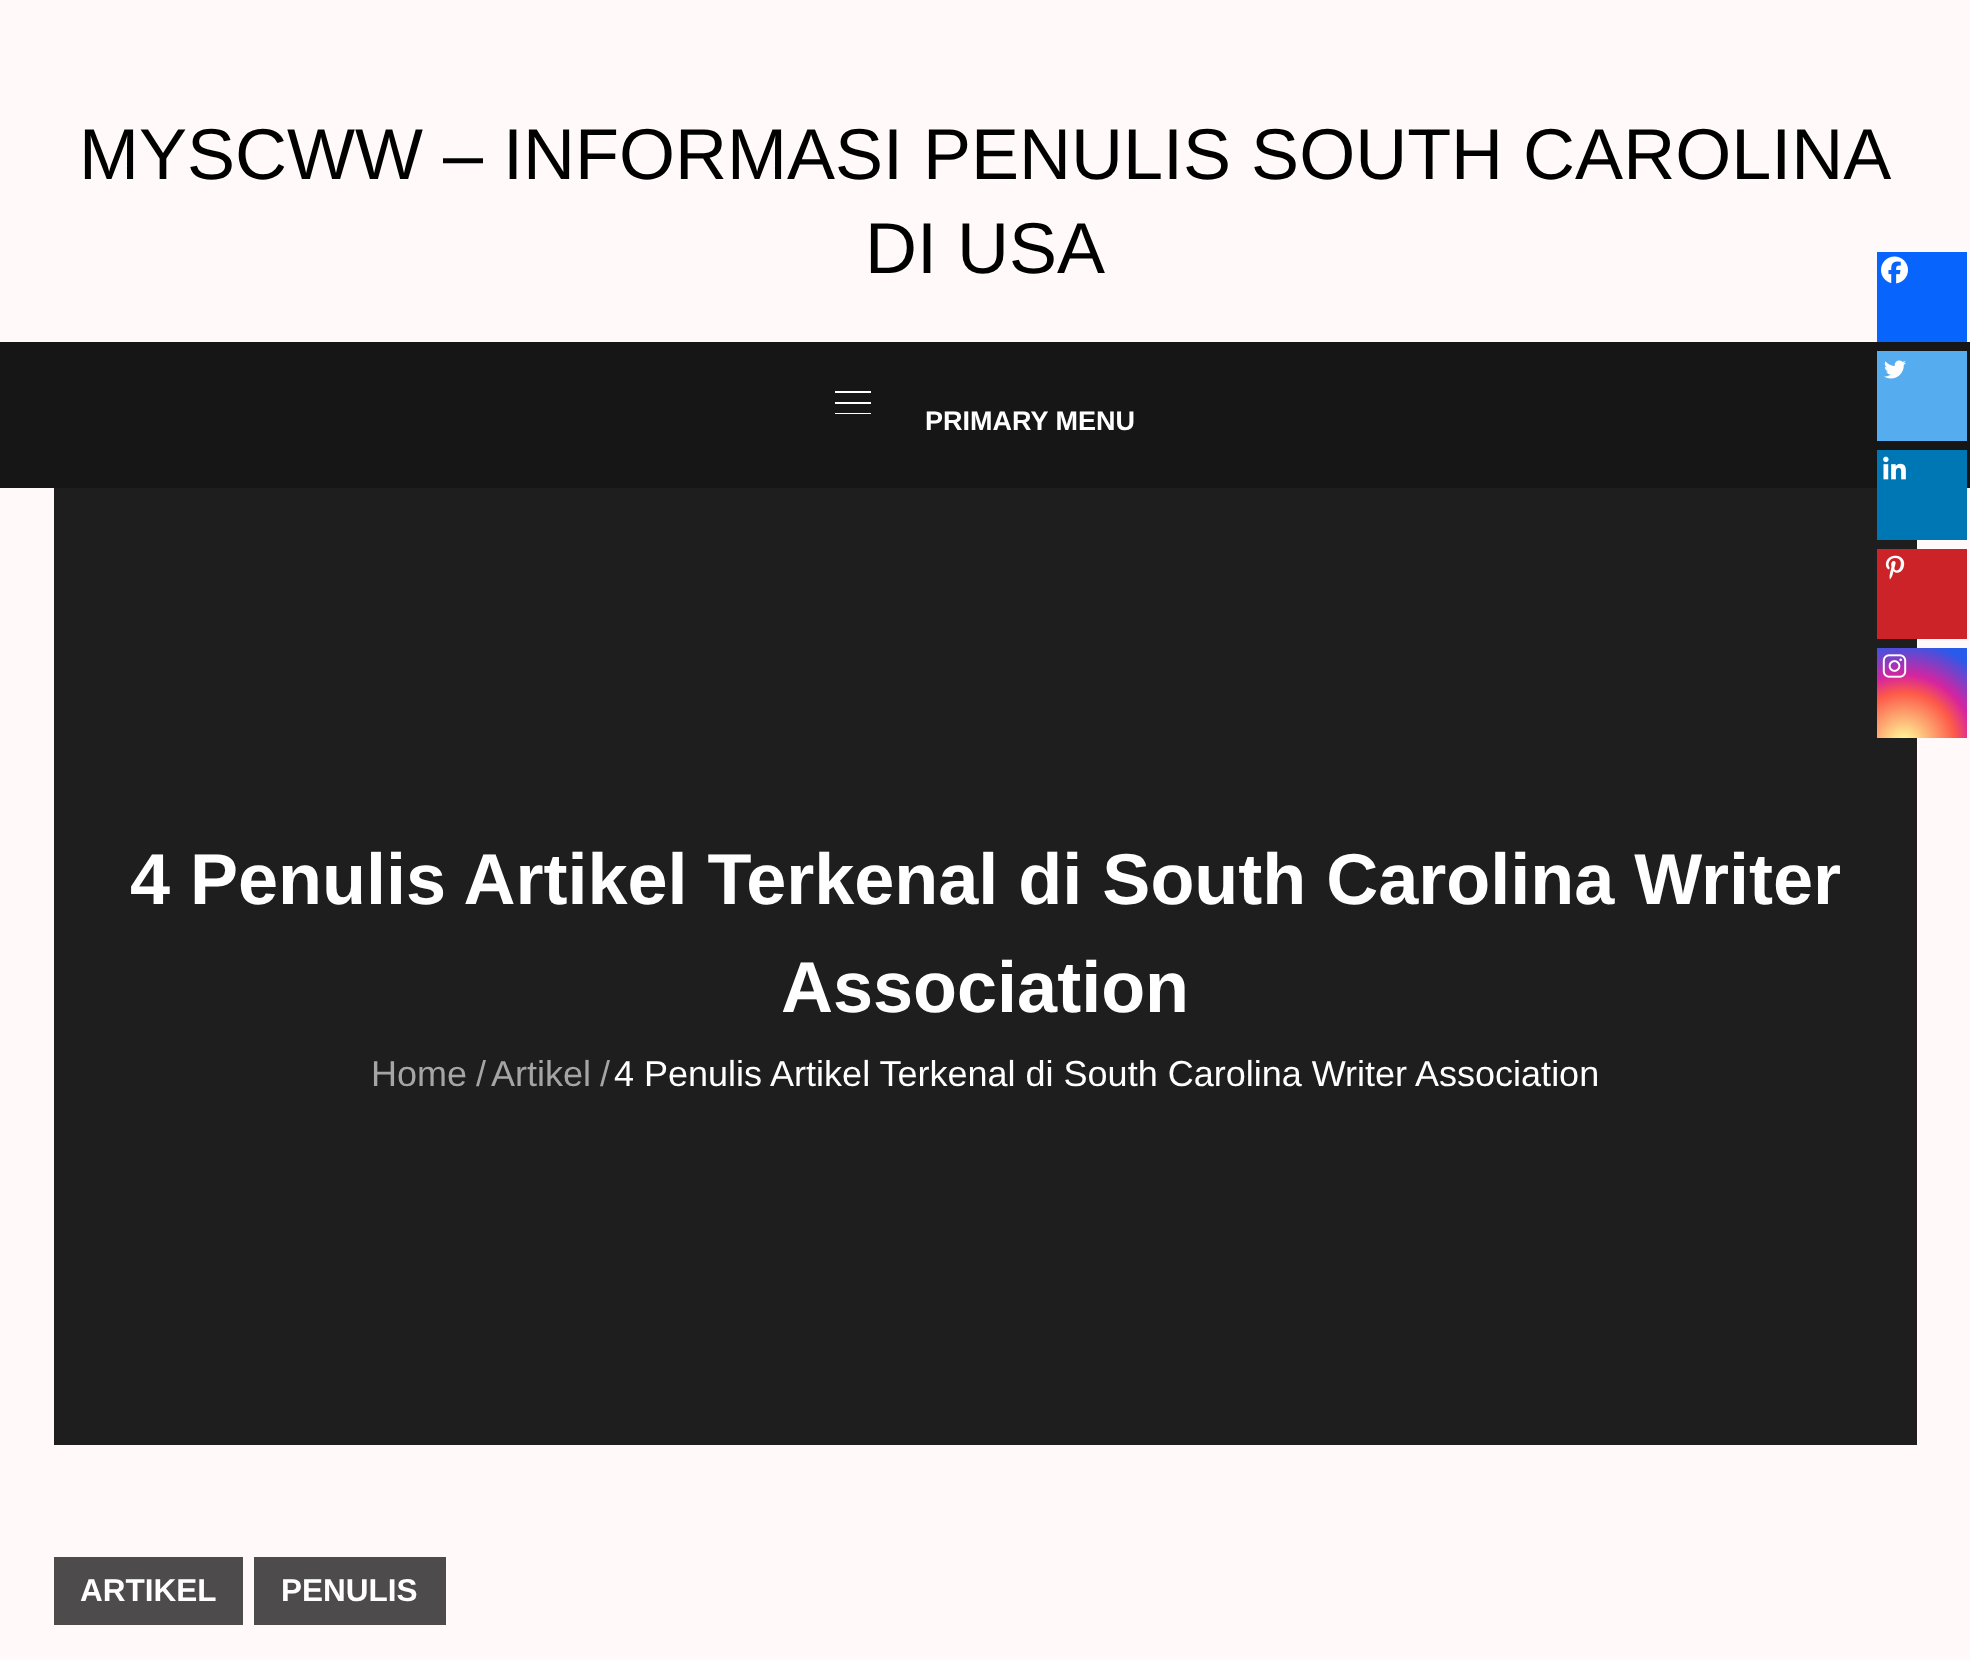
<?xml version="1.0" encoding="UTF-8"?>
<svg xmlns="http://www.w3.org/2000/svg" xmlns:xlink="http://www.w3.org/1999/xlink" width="1970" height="1660">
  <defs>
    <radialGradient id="g1" gradientUnits="userSpaceOnUse" cx="1904" cy="744" r="115"><stop offset="0" stop-color="#fdf497" /><stop offset="0.05" stop-color="#fdf497" /><stop offset="0.45" stop-color="#fd5949" /><stop offset="0.6" stop-color="#d6249f" /><stop offset="0.9" stop-color="#285aeb" /></radialGradient>
  </defs>
  <rect width="100%" height="100%" fill="#fff9f9" />
  <rect y="342" width="1970" height="146" fill="#171616" />
  <rect x="835" y="391" width="36" height="2" fill="#ffffff" />
  <rect x="835" y="402" width="36" height="2" fill="#ffffff" />
  <rect x="835" y="413" width="36" height="1" fill="#ffffff" />
  <rect x="54" y="488" width="1863" height="957" fill="#1e1e1e" />
  <rect x="1877" y="252" width="90" height="90" fill="#0765fe" />
  <image x="1881" y="256" width="27" height="28" xlink:href="image1.png" />
  <rect x="1877" y="351" width="90" height="90" fill="#55acee" />
  <image x="1884" y="360" width="22" height="19" xlink:href="image2.png" />
  <rect x="1877" y="450" width="90" height="90" fill="#0077b5" />
  <image x="1883" y="456" width="23" height="24" xlink:href="image3.png" />
  <rect x="1877" y="549" width="90" height="90" fill="#cc2329" />
  <image x="1885" y="555" width="20" height="25" xlink:href="image4.png" />
  <rect x="1877" y="648" width="90" height="90" fill="url(#g1)" />
  <image x="1882" y="654" width="25" height="24" xlink:href="image5.png" />
  <rect x="54" y="1557" width="189" height="68" fill="#4d4b4b" />
  <rect x="254" y="1557" width="192" height="68" fill="#4d4b4b" />
  <text x="79" y="179" style="font-family: Liberation Sans; font-size: 72px; fill: #000000">MYSCWW – INFORMASI PENULIS SOUTH CAROLINA</text>
  <text x="865" y="273" style="font-family: Liberation Sans; font-size: 72px; fill: #000000">DI USA</text>
  <text x="925" y="430" style="font-family: Liberation Sans; font-size: 27px; font-weight: bold; fill: #ffffff">PRIMARY MENU</text>
  <text x="130" y="904" style="font-family: Liberation Sans; font-size: 72px; font-weight: bold; fill: #ffffff">4 Penulis Artikel Terkenal di South Carolina Writer</text>
  <text x="781" y="1012" style="font-family: Liberation Sans; font-size: 72px; font-weight: bold; fill: #ffffff">Association</text>
  <text x="371" y="1086" style="font-family: Liberation Sans; font-size: 36px; fill: #a5a5a5">Home</text>
  <text x="476" y="1086" style="font-family: Liberation Sans; font-size: 36px; fill: #a5a5a5">/</text>
  <text x="491" y="1086" style="font-family: Liberation Sans; font-size: 36px; fill: #a5a5a5">Artikel</text>
  <text x="600" y="1086" style="font-family: Liberation Sans; font-size: 36px; fill: #a5a5a5">/</text>
  <text x="614" y="1086" style="font-family: Liberation Sans; font-size: 36px; fill: #ffffff">4 Penulis Artikel Terkenal di South Carolina Writer Association</text>
  <text x="80" y="1601" style="font-family: Liberation Sans; font-size: 31.5px; font-weight: bold; fill: #ffffff">ARTIKEL</text>
  <text x="281" y="1601" style="font-family: Liberation Sans; font-size: 31.5px; font-weight: bold; fill: #ffffff">PENULIS</text>
</svg>
